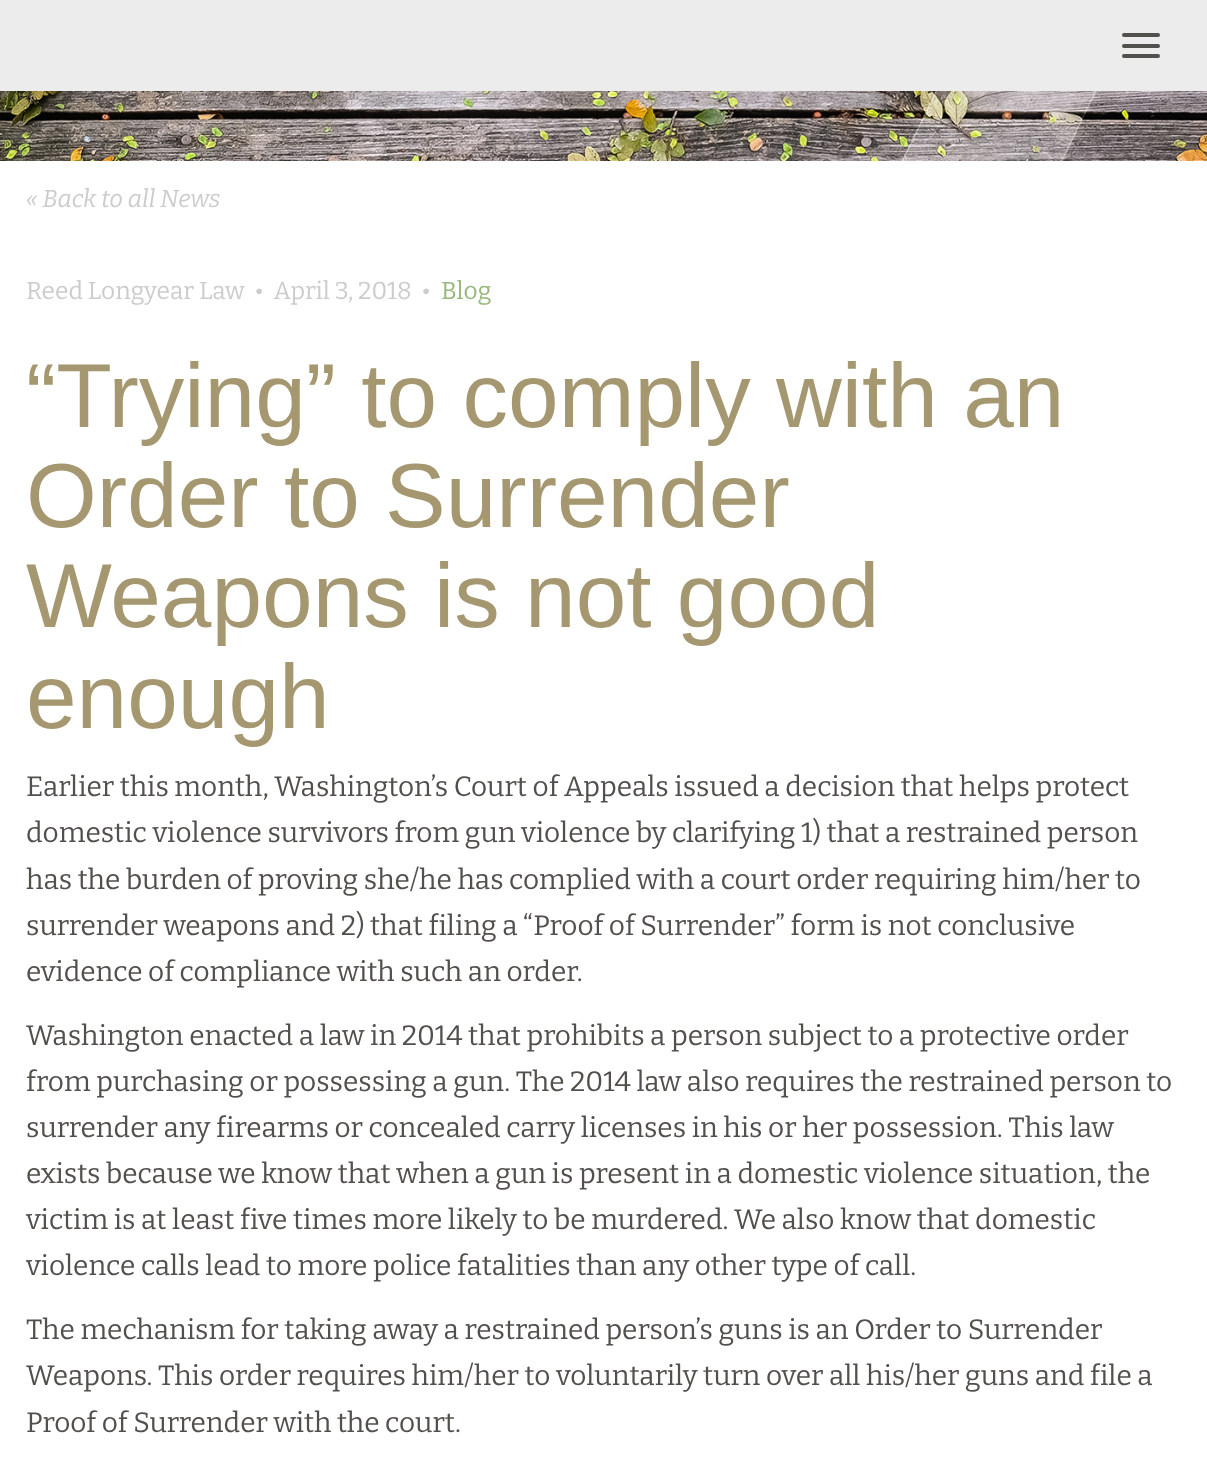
<?xml version="1.0" encoding="UTF-8"?>
<svg xmlns="http://www.w3.org/2000/svg" xmlns:xlink="http://www.w3.org/1999/xlink" width="1207" height="1469">
  <rect width="100%" height="100%" fill="#ffffff" />
  <rect width="1207" height="91" fill="#ececec" />
  <rect x="1122" y="33" width="38" height="4" rx="2" fill="#52504c" />
  <rect x="1122" y="44" width="38" height="4" rx="2" fill="#52504c" />
  <rect x="1122" y="54" width="38" height="4" rx="2" fill="#52504c" />
  <image x="0" y="91" width="1207" height="70" xlink:href="image1.png" />
  <text x="26" y="207" style="font-family: Bitter; font-size: 24.5px; font-weight: 100; font-style: italic; fill: #cccccc">« Back to all News</text>
  <text x="26" y="299" style="font-family: Bitter; font-size: 24.5px; fill: #cccccc" xml:space="preserve">Reed Longyear Law  •  April 3, 2018  •</text>
  <text x="441" y="299" style="font-family: Bitter; font-size: 24.5px; fill: #97b77c">Blog</text>
  <text x="26" y="427" style="font-family: Liberation Sans; font-size: 91px; fill: #a59871">“Trying” to comply with an</text>
  <text x="26" y="527" style="font-family: Liberation Sans; font-size: 91px; fill: #a59871">Order to Surrender</text>
  <text x="26" y="627" style="font-family: Liberation Sans; font-size: 91px; fill: #a59871">Weapons is not good</text>
  <text x="26" y="728" style="font-family: Liberation Sans; font-size: 91px; fill: #a59871">enough</text>
  <text x="26" y="796" style="font-family: Bitter; font-size: 28px; fill: #52504c">Earlier this month, Washington’s Court of Appeals issued a decision that helps protect</text>
  <text x="26" y="842" style="font-family: Bitter; font-size: 28px; fill: #52504c">domestic violence survivors from gun violence by clarifying 1) that a restrained person</text>
  <text x="26" y="889" style="font-family: Bitter; font-size: 28px; fill: #52504c">has the burden of proving she/he has complied with a court order requiring him/her to</text>
  <text x="26" y="935" style="font-family: Bitter; font-size: 28px; fill: #52504c">surrender weapons and 2) that filing a “Proof of Surrender” form is not conclusive</text>
  <text x="26" y="981" style="font-family: Bitter; font-size: 28px; fill: #52504c">evidence of compliance with such an order.</text>
  <text x="26" y="1045" style="font-family: Bitter; font-size: 28px; fill: #52504c">Washington enacted a law in 2014 that prohibits a person subject to a protective order</text>
  <text x="26" y="1091" style="font-family: Bitter; font-size: 28px; fill: #52504c">from purchasing or possessing a gun. The 2014 law also requires the restrained person to</text>
  <text x="26" y="1137" style="font-family: Bitter; font-size: 28px; fill: #52504c">surrender any firearms or concealed carry licenses in his or her possession. This law</text>
  <text x="26" y="1183" style="font-family: Bitter; font-size: 28px; fill: #52504c">exists because we know that when a gun is present in a domestic violence situation, the</text>
  <text x="26" y="1229" style="font-family: Bitter; font-size: 28px; fill: #52504c">victim is at least five times more likely to be murdered. We also know that domestic</text>
  <text x="26" y="1275" style="font-family: Bitter; font-size: 28px; fill: #52504c">violence calls lead to more police fatalities than any other type of call.</text>
  <text x="26" y="1339" style="font-family: Bitter; font-size: 28px; fill: #52504c">The mechanism for taking away a restrained person’s guns is an Order to Surrender</text>
  <text x="26" y="1385" style="font-family: Bitter; font-size: 28px; fill: #52504c">Weapons. This order requires him/her to voluntarily turn over all his/her guns and file a</text>
  <text x="26" y="1432" style="font-family: Bitter; font-size: 28px; fill: #52504c">Proof of Surrender with the court.</text>
</svg>
